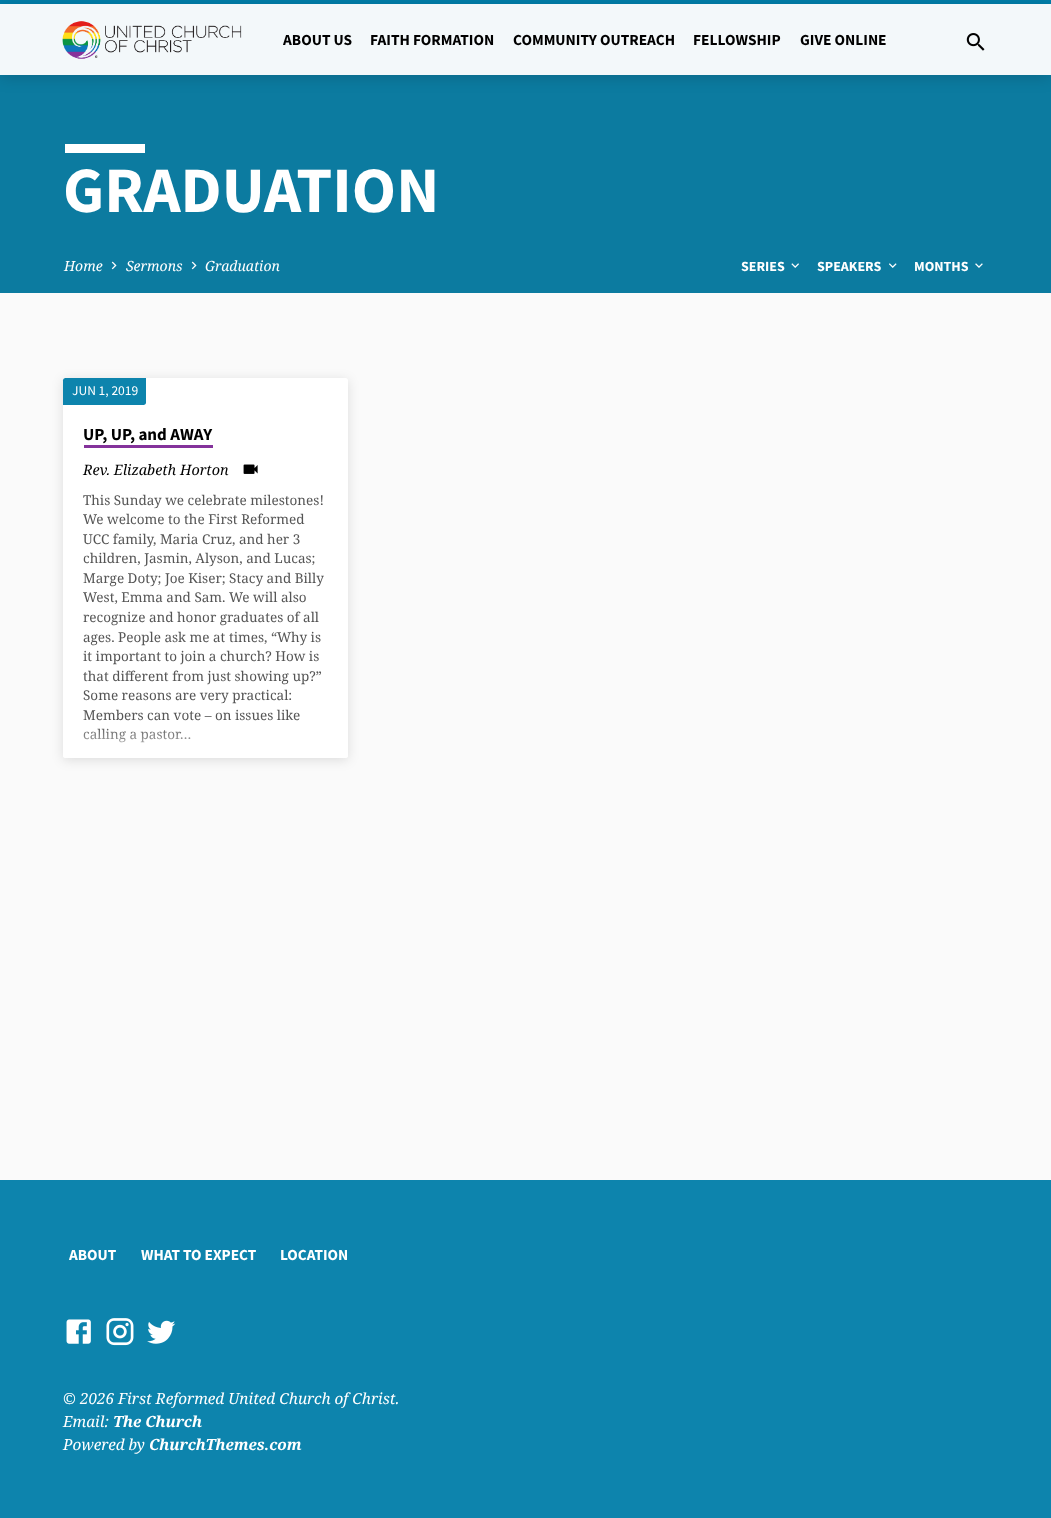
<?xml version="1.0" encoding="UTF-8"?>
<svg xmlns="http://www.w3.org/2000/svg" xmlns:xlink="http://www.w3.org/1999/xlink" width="1051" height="1518">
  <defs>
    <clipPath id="clip1"><path d="M 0 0 h 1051 v 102 h -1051 z m 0 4 h 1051 v 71 h -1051 z" clip-rule="evenodd" /></clipPath>
    <linearGradient id="g1" gradientUnits="userSpaceOnUse" x1="205" y1="726" x2="205" y2="758"><stop offset="0" stop-color="#ffffff" stop-opacity="0" /><stop offset="1" stop-color="#ffffff" stop-opacity="0.9" /></linearGradient>
  </defs>
  <rect width="100%" height="100%" fill="#fafafa" />
  <rect width="1051" height="4" fill="#017ea9" />
  <rect y="4" width="1051" height="71" fill="#f3f8fa" />
  <rect y="75" width="1051" height="218" fill="#0c7ba0" />
  <g clip-path="url(#clip1)">
    <rect y="6" width="1051" height="72" fill="#000000" fill-opacity="0.14" filter="blur(7.5px)" />
  </g>
  <image x="62" y="21" width="180" height="38" xlink:href="image1.png" />
  <image x="966" y="33" width="19" height="18" xlink:href="image2.png" />
  <rect x="65" y="144" width="80" height="9" fill="#ffffff" />
  <image x="111" y="261" width="6" height="9" xlink:href="image3.png" />
  <image x="191" y="261" width="6" height="9" xlink:href="image3.png" />
  <image x="791" y="263" width="8" height="5" xlink:href="image4.png" />
  <image x="889" y="263" width="8" height="5" xlink:href="image5.png" />
  <image x="975" y="263" width="8" height="5" xlink:href="image6.png" />
  <rect x="63" y="380" width="285" height="380" rx="2.5" fill="#000000" fill-opacity="0.12" filter="blur(6px)" />
  <rect x="63" y="378" width="285" height="380" rx="2.5" fill="#ffffff" />
  <path d="M 65.5 378 h 80.5 v 24.5 c 0 1.5 -1 2.5 -2.5 2.5 h -80.5 v -24.5 c 0 -1.5 1 -2.5 2.5 -2.5 z" fill="#0d84ad" />
  <rect x="84" y="445" width="129" height="3" fill="#84329b" />
  <image x="243" y="464" width="15" height="10" xlink:href="image7.png" />
  <rect y="1180" width="1051" height="338" fill="#0d84ad" />
  <image x="66" y="1319" width="25" height="25" xlink:href="image8.png" />
  <image x="106" y="1318" width="28" height="28" xlink:href="image9.png" />
  <image x="147" y="1320" width="29" height="24" xlink:href="image10.png" />
  <text x="283" y="45" style="font-family: Source Sans Pro; font-size: 15.4px; font-weight: bold; fill: #000000">ABOUT US</text>
  <text x="370" y="45" style="font-family: Source Sans Pro; font-size: 15.4px; font-weight: bold; fill: #000000">FAITH FORMATION</text>
  <text x="513" y="45" style="font-family: Source Sans Pro; font-size: 15.4px; font-weight: bold; fill: #000000">COMMUNITY OUTREACH</text>
  <text x="693" y="45" style="font-family: Source Sans Pro; font-size: 15.4px; font-weight: bold; fill: #000000">FELLOWSHIP</text>
  <text x="800" y="45" style="font-family: Source Sans Pro; font-size: 15.4px; font-weight: bold; fill: #000000">GIVE ONLINE</text>
  <text x="63" y="212" style="font-family: Source Sans Pro; font-size: 64.75px; font-weight: bold; fill: #ffffff">GRADUATION</text>
  <text x="64" y="271" style="font-family: Noto Serif; font-size: 14px; font-style: italic; fill: #ffffff">Home</text>
  <text x="126" y="271" style="font-family: Noto Serif; font-size: 14px; font-style: italic; fill: #ffffff">Sermons</text>
  <text x="205" y="271" style="font-family: Noto Serif; font-size: 14px; font-style: italic; fill: #ffffff">Graduation</text>
  <text x="741" y="271" style="font-family: Source Sans Pro; font-size: 14px; font-weight: bold; fill: #ffffff">SERIES</text>
  <text x="817" y="271" style="font-family: Source Sans Pro; font-size: 14px; font-weight: bold; fill: #ffffff">SPEAKERS</text>
  <text x="914" y="271" style="font-family: Source Sans Pro; font-size: 14px; font-weight: bold; fill: #ffffff">MONTHS</text>
  <text x="72" y="395" style="font-family: Source Sans Pro; font-size: 13.5px; fill: #ffffff">JUN 1, 2019</text>
  <text x="83" y="440" style="font-family: Source Sans Pro; font-size: 17px; font-weight: bold; fill: #000000">UP, UP, and AWAY</text>
  <text x="83" y="475" style="font-family: Noto Serif; font-size: 14.4px; font-style: italic; fill: #000000">Rev. Elizabeth Horton</text>
  <text x="83" y="505" style="font-family: Noto Serif; font-size: 13.5px; fill: #555555">This Sunday we celebrate milestones!</text>
  <text x="83" y="524" style="font-family: Noto Serif; font-size: 13.5px; fill: #555555">We welcome to the First Reformed</text>
  <text x="83" y="544" style="font-family: Noto Serif; font-size: 13.5px; fill: #555555">UCC family, Maria Cruz, and her 3</text>
  <text x="83" y="563" style="font-family: Noto Serif; font-size: 13.5px; fill: #555555">children, Jasmin, Alyson, and Lucas;</text>
  <text x="83" y="583" style="font-family: Noto Serif; font-size: 13.5px; fill: #555555">Marge Doty; Joe Kiser; Stacy and Billy</text>
  <text x="83" y="602" style="font-family: Noto Serif; font-size: 13.5px; fill: #555555">West, Emma and Sam. We will also</text>
  <text x="83" y="622" style="font-family: Noto Serif; font-size: 13.5px; fill: #555555">recognize and honor graduates of all</text>
  <text x="83" y="642" style="font-family: Noto Serif; font-size: 13.5px; fill: #555555">ages. People ask me at times, “Why is</text>
  <text x="83" y="661" style="font-family: Noto Serif; font-size: 13.5px; fill: #555555">it important to join a church? How is</text>
  <text x="83" y="681" style="font-family: Noto Serif; font-size: 13.5px; fill: #555555">that different from just showing up?”</text>
  <text x="83" y="700" style="font-family: Noto Serif; font-size: 13.5px; fill: #555555">Some reasons are very practical:</text>
  <text x="83" y="720" style="font-family: Noto Serif; font-size: 13.5px; fill: #555555">Members can vote – on issues like</text>
  <text x="83" y="739" style="font-family: Noto Serif; font-size: 13.5px; fill: #555555">calling a pastor…</text>
  <path d="M 63 726 h 285 v 29.5 c 0 1.5 -1 2.5 -2.5 2.5 h -280 c -1.5 0 -2.5 -1 -2.5 -2.5 z" fill="url(#g1)" />
  <text x="69" y="1260" style="font-family: Source Sans Pro; font-size: 15.3px; font-weight: bold; fill: #ffffff">ABOUT</text>
  <text x="141" y="1260" style="font-family: Source Sans Pro; font-size: 15.3px; font-weight: bold; fill: #ffffff">WHAT TO EXPECT</text>
  <text x="280" y="1260" style="font-family: Source Sans Pro; font-size: 15.3px; font-weight: bold; fill: #ffffff">LOCATION</text>
  <text x="63" y="1404" style="font-family: Noto Serif; font-size: 15.3px; font-style: italic; fill: #ffffff">© 2026 First Reformed United Church of Christ.</text>
  <text x="63" y="1427" style="font-family: Noto Serif; font-size: 15.3px; font-style: italic; fill: #ffffff">Email:</text>
  <text x="113" y="1427" style="font-family: Noto Serif; font-size: 15.3px; font-weight: bold; font-style: italic; fill: #ffffff">The Church</text>
  <text x="63" y="1450" style="font-family: Noto Serif; font-size: 15.3px; font-style: italic; fill: #ffffff">Powered by</text>
  <text x="149" y="1450" style="font-family: Noto Serif; font-size: 15.3px; font-weight: bold; font-style: italic; fill: #ffffff">ChurchThemes.com</text>
</svg>
